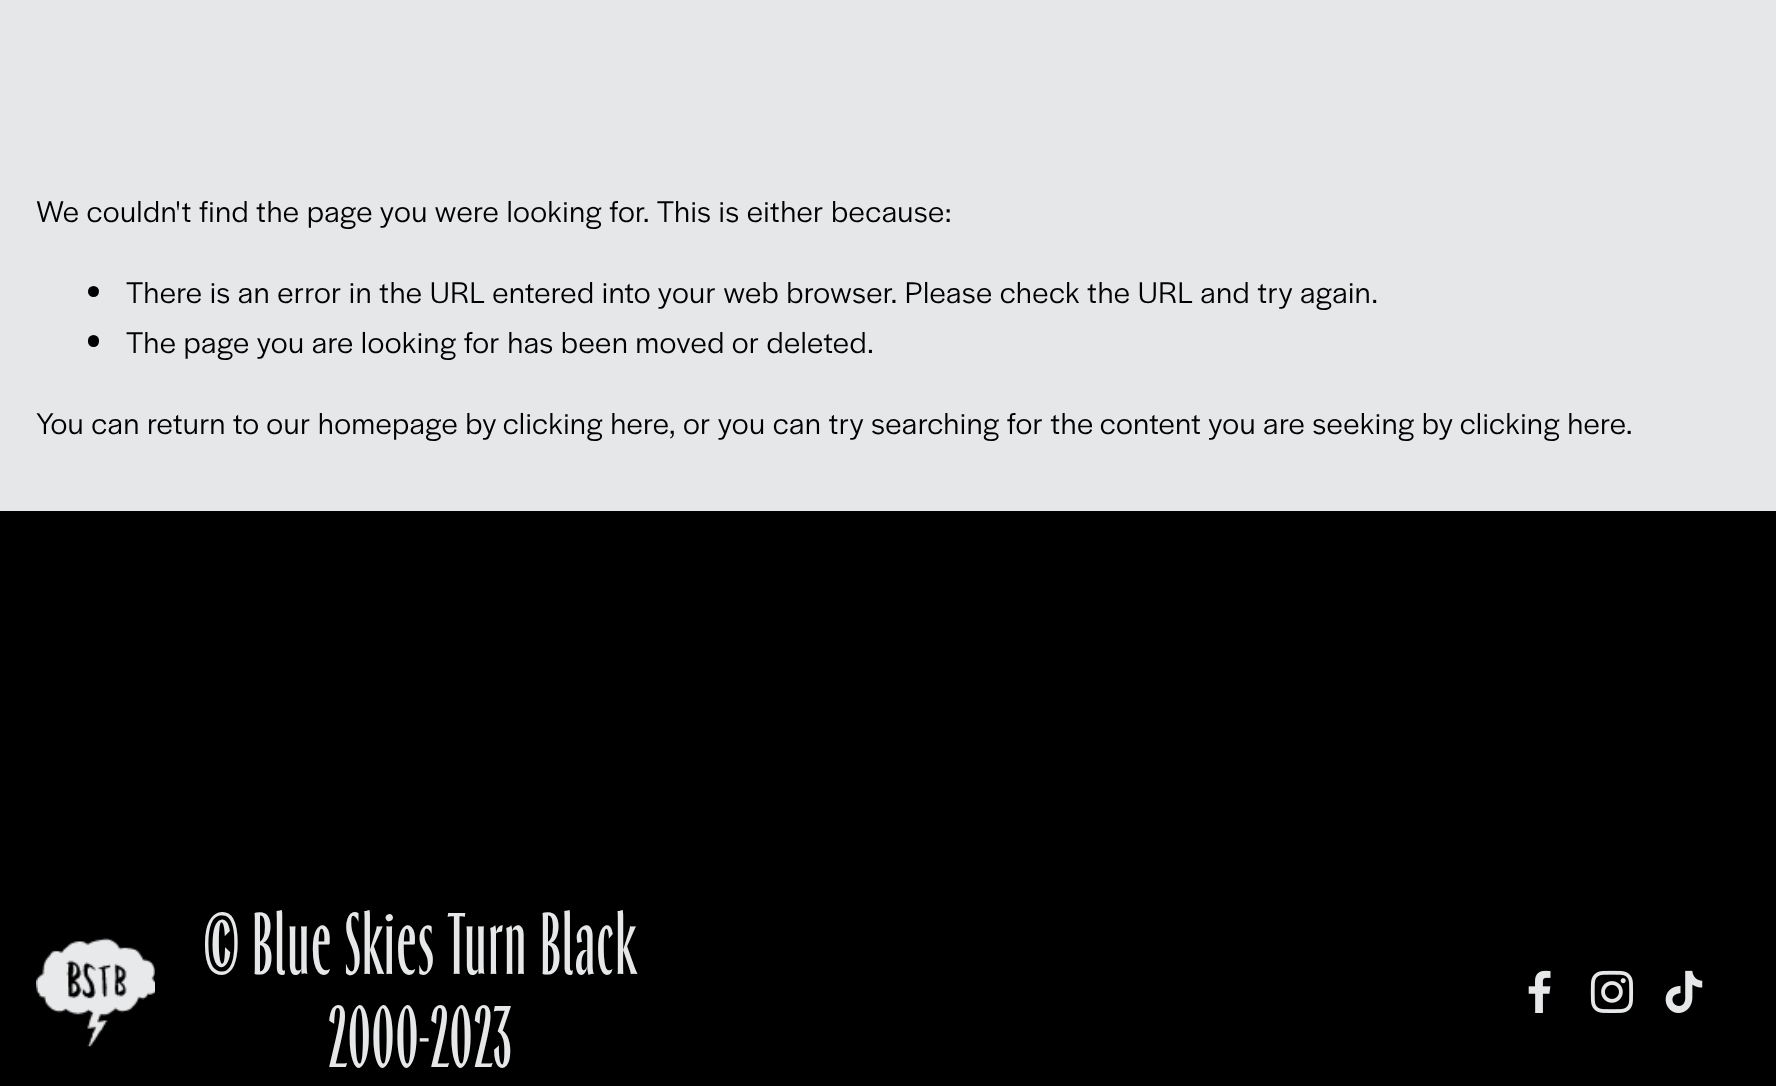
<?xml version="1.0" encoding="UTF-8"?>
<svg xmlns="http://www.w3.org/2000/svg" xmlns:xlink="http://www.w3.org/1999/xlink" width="1776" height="1086">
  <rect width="100%" height="100%" fill="#e6e7e8" />
  <circle cx="93.5" cy="291.5" r="5.5" fill="#000000" />
  <rect x="88" y="335" width="11" height="12" rx="5.5" fill="#000000" />
  <rect y="511" width="1776" height="575" fill="#000000" />
  <image x="36" y="938" width="119" height="109" xlink:href="image1.png" />
  <image x="1528" y="970" width="23" height="43" xlink:href="image2.png" />
  <image x="1590" y="970" width="44" height="43" xlink:href="image3.png" />
  <image x="1665" y="970" width="38" height="43" xlink:href="image4.png" />
  <text x="36" y="222" style="font-family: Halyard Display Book; font-size: 31.25px; letter-spacing: 0.95px; fill: #000000">We couldn't find the page you were looking for. This is either because:</text>
  <text x="126" y="303" style="font-family: Halyard Display Book; font-size: 31.25px; letter-spacing: 0.95px; fill: #000000">There is an error in the URL entered into your web browser. Please check the URL and try again.</text>
  <text x="126" y="353" style="font-family: Halyard Display Book; font-size: 31.25px; letter-spacing: 0.95px; fill: #000000">The page you are looking for has been moved or deleted.</text>
  <text x="36" y="434" style="font-family: Halyard Display Book; font-size: 31.25px; letter-spacing: 0.95px; fill: #000000">You can return to our homepage by</text>
  <text x="503" y="434" style="font-family: Halyard Display Book; font-size: 31.25px; letter-spacing: 0.95px; fill: #000000">clicking here</text>
  <text x="669" y="434" style="font-family: Halyard Display Book; font-size: 31.25px; letter-spacing: 0.95px; fill: #000000">, or you can try searching for the</text>
  <text x="1100" y="434" style="font-family: Halyard Display Book; font-size: 31.25px; letter-spacing: 0.95px; fill: #000000">content you are seeking by</text>
  <text x="1460" y="434" style="font-family: Halyard Display Book; font-size: 31.25px; letter-spacing: 0.95px; fill: #000000">clicking here</text>
  <text x="1626" y="434" style="font-family: Halyard Display Book; font-size: 31.25px; letter-spacing: 0.95px; fill: #000000">.</text>
  <text x="204" y="974" style="font-family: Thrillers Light; font-size: 86.75px; font-weight: 300; letter-spacing: 0.9px; fill: #e6e7e8">© Blue Skies Turn Black</text>
  <text x="328" y="1067" style="font-family: Thrillers Light; font-size: 86.75px; font-weight: 300; letter-spacing: 0.9px; fill: #e6e7e8">2000-2023</text>
</svg>
